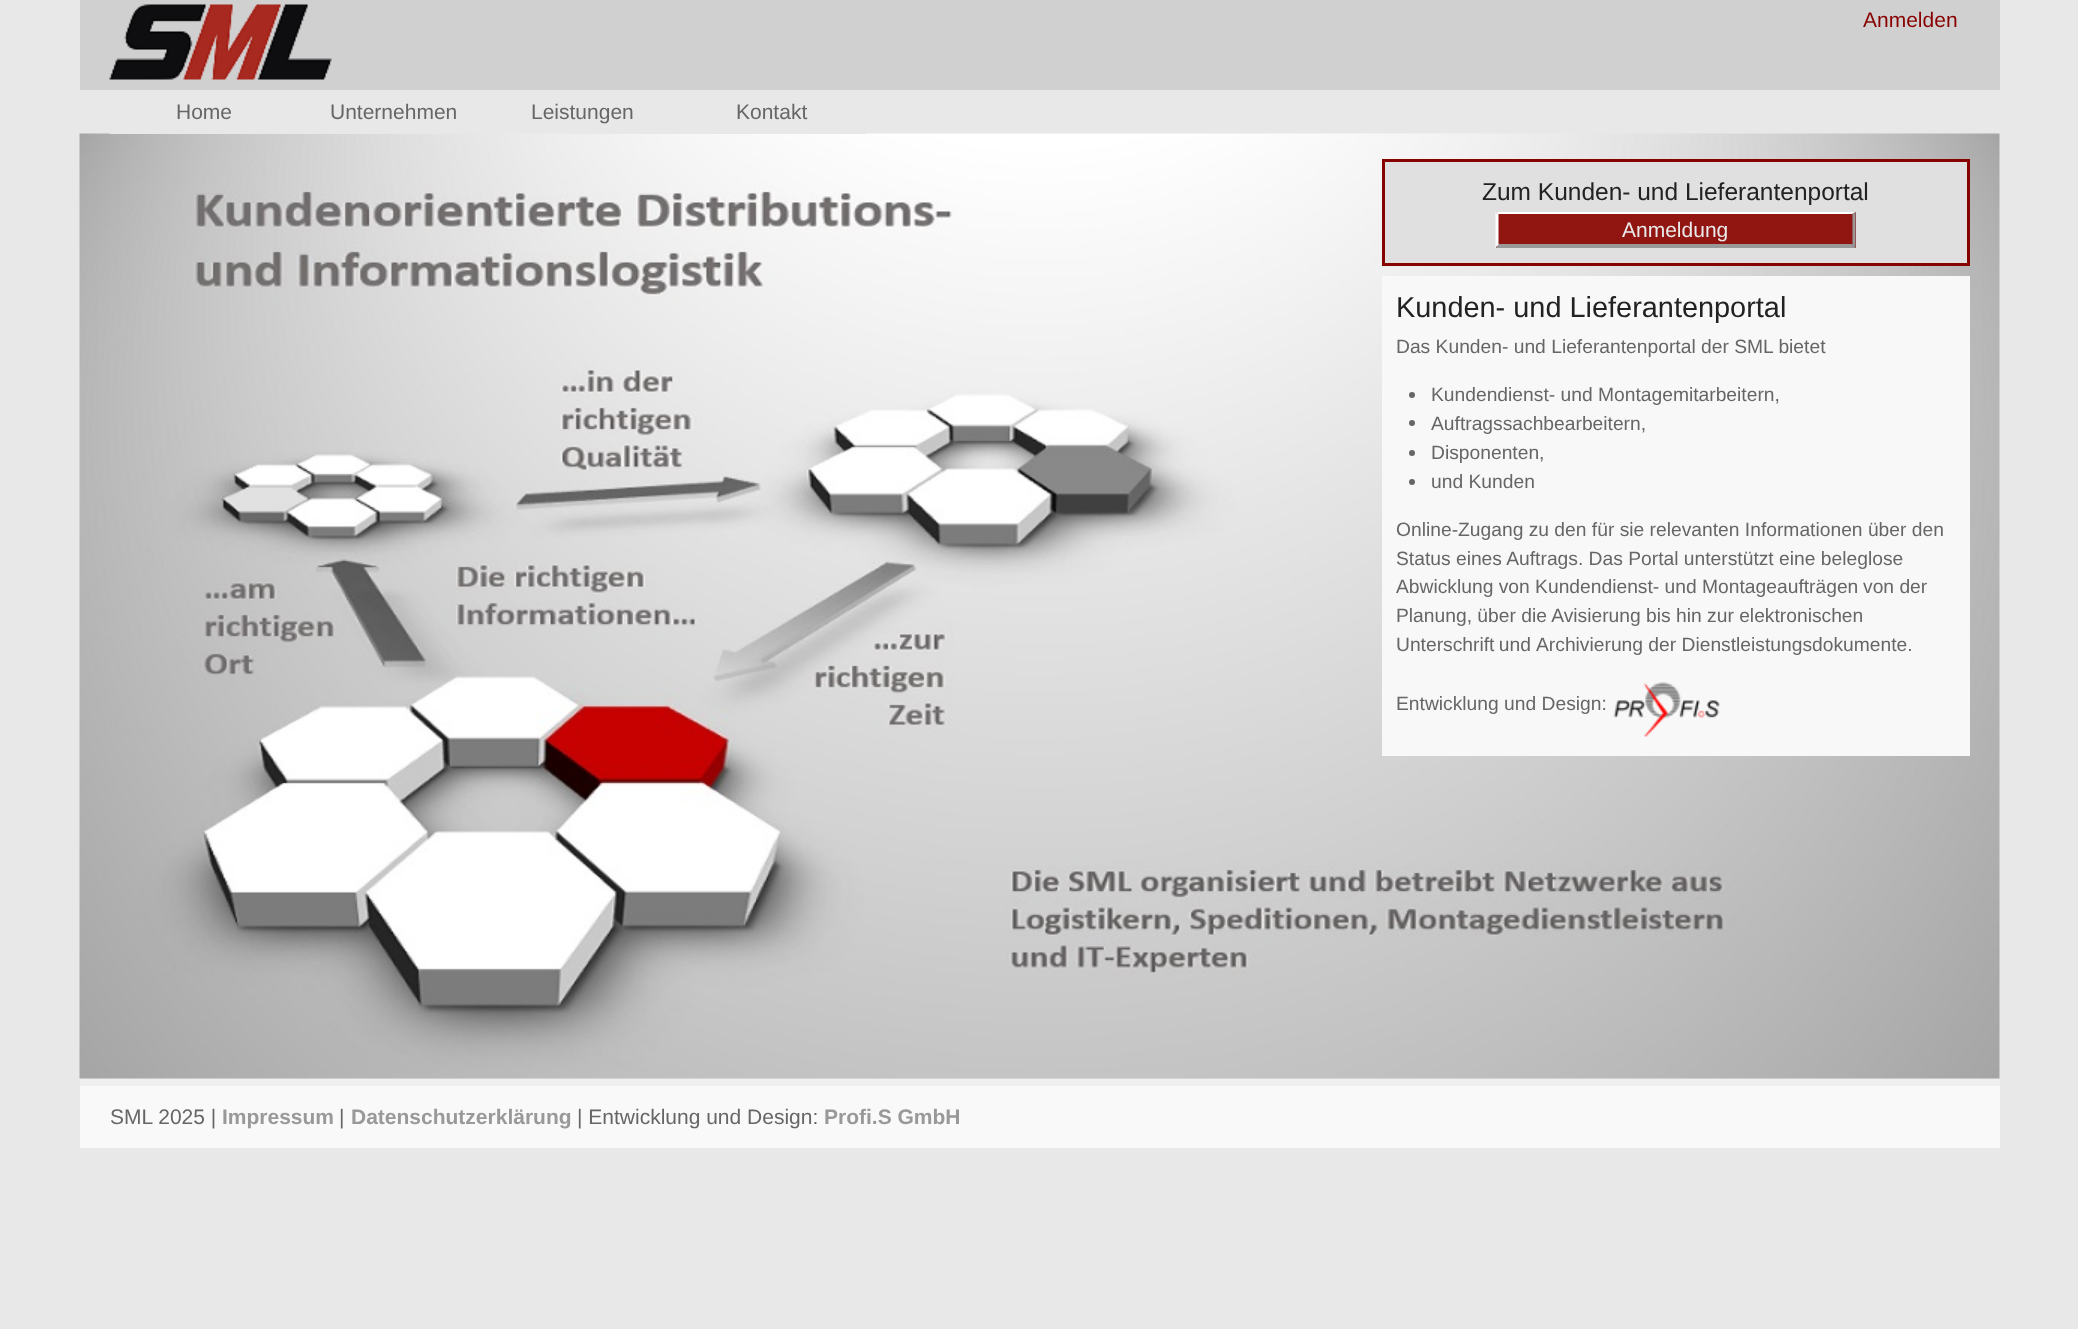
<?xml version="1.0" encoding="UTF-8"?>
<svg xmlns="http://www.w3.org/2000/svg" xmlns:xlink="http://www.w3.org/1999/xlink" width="2078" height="1329">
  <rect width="100%" height="100%" fill="#e8e8e8" />
  <rect x="80" width="1920" height="90" fill="#d0d0d0" />
  <image x="109" y="4" width="223" height="76" xlink:href="image1.png" />
  <image x="79" y="133" width="1921" height="946" xlink:href="image2.png" />
  <rect x="110" y="133" width="327" height="1" fill="#e8e8e8" />
  <rect x="568" y="133" width="298" height="1" fill="#e8e8e8" />
  <rect x="1383.5" y="160.5" width="585" height="104" fill="#e0e0e0" stroke="#880000" stroke-width="3" />
  <rect x="1496" y="212" width="360" height="36" fill="#911511" />
  <path d="M 1496 212 h 360 l -4 2 h -354 z" fill="#ffffff" />
  <path d="M 1855.5 211.5 v 36 l -3 -3 v -30 z" fill="#999999" />
  <path d="M 1856 248 h -360 l 2 -4 h 354 z" fill="#999999" />
  <path d="M 1495.5 247.5 v -36 l 3 3 v 30 z" fill="#ffffff" />
  <rect x="1382" y="276" width="588" height="480" fill="#f8f8f8" />
  <circle cx="1412" cy="395" r="3" fill="#666666" />
  <circle cx="1412" cy="423" r="3" fill="#666666" />
  <circle cx="1412" cy="453" r="3" fill="#666666" />
  <circle cx="1412" cy="482" r="3" fill="#666666" />
  <image x="1613" y="682" width="107" height="55" xlink:href="image3.png" />
  <rect x="80" y="1086" width="1920" height="62" fill="#f9f9f9" />
  <rect x="80" y="1079" width="1920" height="7" fill="#efefef" />
  <text x="1863" y="27" style="font-family: Liberation Sans; font-size: 21px; fill: #880000">Anmelden</text>
  <text x="176" y="119" style="font-family: Liberation Sans; font-size: 21px; fill: #666666">Home</text>
  <text x="330" y="119" style="font-family: Liberation Sans; font-size: 21px; fill: #666666">Unternehmen</text>
  <text x="531" y="119" style="font-family: Liberation Sans; font-size: 21px; fill: #666666">Leistungen</text>
  <text x="736" y="119" style="font-family: Liberation Sans; font-size: 21px; fill: #666666">Kontakt</text>
  <text x="1482" y="200" style="font-family: Liberation Sans; font-size: 24.5px; fill: #222222">Zum Kunden- und Lieferantenportal</text>
  <text x="1622" y="237" style="font-family: Liberation Sans; font-size: 21px; fill: #eaeaea">Anmeldung</text>
  <text x="1396" y="317" style="font-family: Liberation Sans; font-size: 28.9px; fill: #222222">Kunden- und Lieferantenportal</text>
  <text x="1396" y="353" style="font-family: Liberation Sans; font-size: 19.25px; fill: #666666">Das Kunden- und Lieferantenportal der SML bietet</text>
  <text x="1431" y="401" style="font-family: Liberation Sans; font-size: 19.25px; fill: #666666">Kundendienst- und Montagemitarbeitern,</text>
  <text x="1431" y="430" style="font-family: Liberation Sans; font-size: 19.25px; fill: #666666">Auftragssachbearbeitern,</text>
  <text x="1431" y="459" style="font-family: Liberation Sans; font-size: 19.25px; fill: #666666">Disponenten,</text>
  <text x="1431" y="488" style="font-family: Liberation Sans; font-size: 19.25px; fill: #666666">und Kunden</text>
  <text x="1396" y="536" style="font-family: Liberation Sans; font-size: 19.25px; fill: #666666">Online-Zugang zu den für sie relevanten Informationen über den</text>
  <text x="1396" y="565" style="font-family: Liberation Sans; font-size: 19.25px; fill: #666666">Status eines Auftrags. Das Portal unterstützt eine beleglose</text>
  <text x="1396" y="593" style="font-family: Liberation Sans; font-size: 19.25px; fill: #666666">Abwicklung von Kundendienst- und Montageaufträgen</text>
  <text x="1863" y="593" style="font-family: Liberation Sans; font-size: 19.25px; fill: #666666">von der</text>
  <text x="1396" y="622" style="font-family: Liberation Sans; font-size: 19.25px; fill: #666666">Planung, über die Avisierung bis hin zur elektronischen</text>
  <text x="1396" y="651" word-spacing="-1" style="font-family: Liberation Sans; font-size: 19.25px; fill: #666666">Unterschrift und</text>
  <text x="1536" y="651" style="font-family: Liberation Sans; font-size: 19.25px; fill: #666666">Archivierung der Dienstleistungsdokumente.</text>
  <text x="1396" y="710" style="font-family: Liberation Sans; font-size: 19.25px; fill: #666666">Entwicklung und Design:</text>
  <text x="110" y="1124" style="font-family: Liberation Sans; font-size: 21px; fill: #666666">SML 2025 |</text>
  <text x="222" y="1124" style="font-family: Liberation Sans; font-size: 21px; font-weight: bold; fill: #999999">Impressum</text>
  <text x="339" y="1124" style="font-family: Liberation Sans; font-size: 21px; fill: #666666">|</text>
  <text x="351" y="1124" style="font-family: Liberation Sans; font-size: 21px; font-weight: bold; fill: #999999">Datenschutzerklärung</text>
  <text x="577" y="1124" style="font-family: Liberation Sans; font-size: 21px; fill: #666666">| Entwicklung und Design:</text>
  <text x="824" y="1124" style="font-family: Liberation Sans; font-size: 21px; font-weight: bold; fill: #999999">Profi.S GmbH</text>
</svg>
